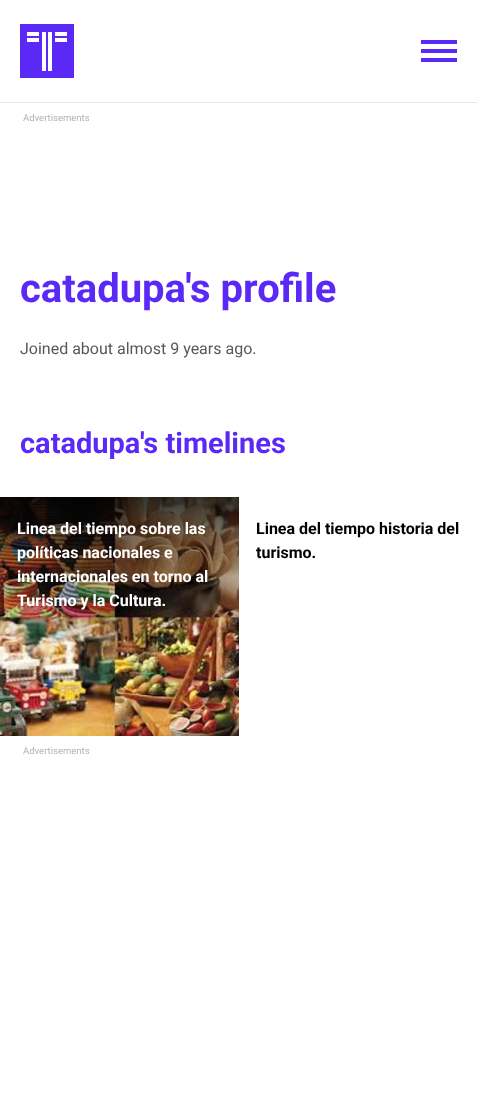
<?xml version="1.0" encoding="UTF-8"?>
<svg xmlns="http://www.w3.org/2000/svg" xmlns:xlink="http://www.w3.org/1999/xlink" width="477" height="1109">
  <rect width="100%" height="100%" fill="#ffffff" />
  <rect y="102" width="477" height="1" fill="#e8e8e9" />
  <rect x="20" y="24" width="54" height="54" fill="#5b29f5" />
  <rect x="42" y="32" width="4" height="39" fill="#ffffff" />
  <rect x="27" y="38" width="12" height="4" fill="#ffffff" />
  <rect x="48" y="32" width="4" height="39" fill="#ffffff" />
  <rect x="27" y="32" width="12" height="4" fill="#ffffff" />
  <rect x="55" y="38" width="12" height="4" fill="#ffffff" />
  <rect x="55" y="32" width="12" height="4" fill="#ffffff" />
  <rect x="421" y="40" width="36" height="4" fill="#5b29f5" />
  <rect x="421" y="49" width="36" height="4" fill="#5b29f5" />
  <rect x="421" y="58" width="36" height="4" fill="#5b29f5" />
  <image x="0" y="497" width="239" height="239" xlink:href="image1.png" />
  <text x="23" y="121" style="font-family: Roboto; font-size: 9.5px; fill: #b3b3b5">Advertisements</text>
  <text x="20" y="302" style="font-family: Roboto; font-size: 40px; font-weight: bold; fill: #5b29f5">catadupa's profile</text>
  <text x="20" y="354" style="font-family: Roboto; font-size: 16px; fill: #57575c">Joined about almost 9 years ago.</text>
  <text x="20" y="453" style="font-family: Roboto; font-size: 29px; font-weight: bold; fill: #5b29f5">catadupa's timelines</text>
  <text x="17" y="534" style="font-family: Roboto; font-size: 16px; font-weight: bold; fill: #ffffff">Linea del tiempo sobre las</text>
  <text x="17" y="558" style="font-family: Roboto; font-size: 16px; font-weight: bold; fill: #ffffff">políticas nacionales e</text>
  <text x="17" y="582" style="font-family: Roboto; font-size: 16px; font-weight: bold; fill: #ffffff">internacionales en torno al</text>
  <text x="17" y="606" style="font-family: Roboto; font-size: 16px; font-weight: bold; fill: #ffffff">Turismo y la Cultura.</text>
  <text x="256" y="534" style="font-family: Roboto; font-size: 16px; font-weight: bold; fill: #000000">Linea del tiempo historia del</text>
  <text x="256" y="558" style="font-family: Roboto; font-size: 16px; font-weight: bold; fill: #000000">turismo.</text>
  <text x="23" y="754" style="font-family: Roboto; font-size: 9.5px; fill: #b3b3b5">Advertisements</text>
</svg>
